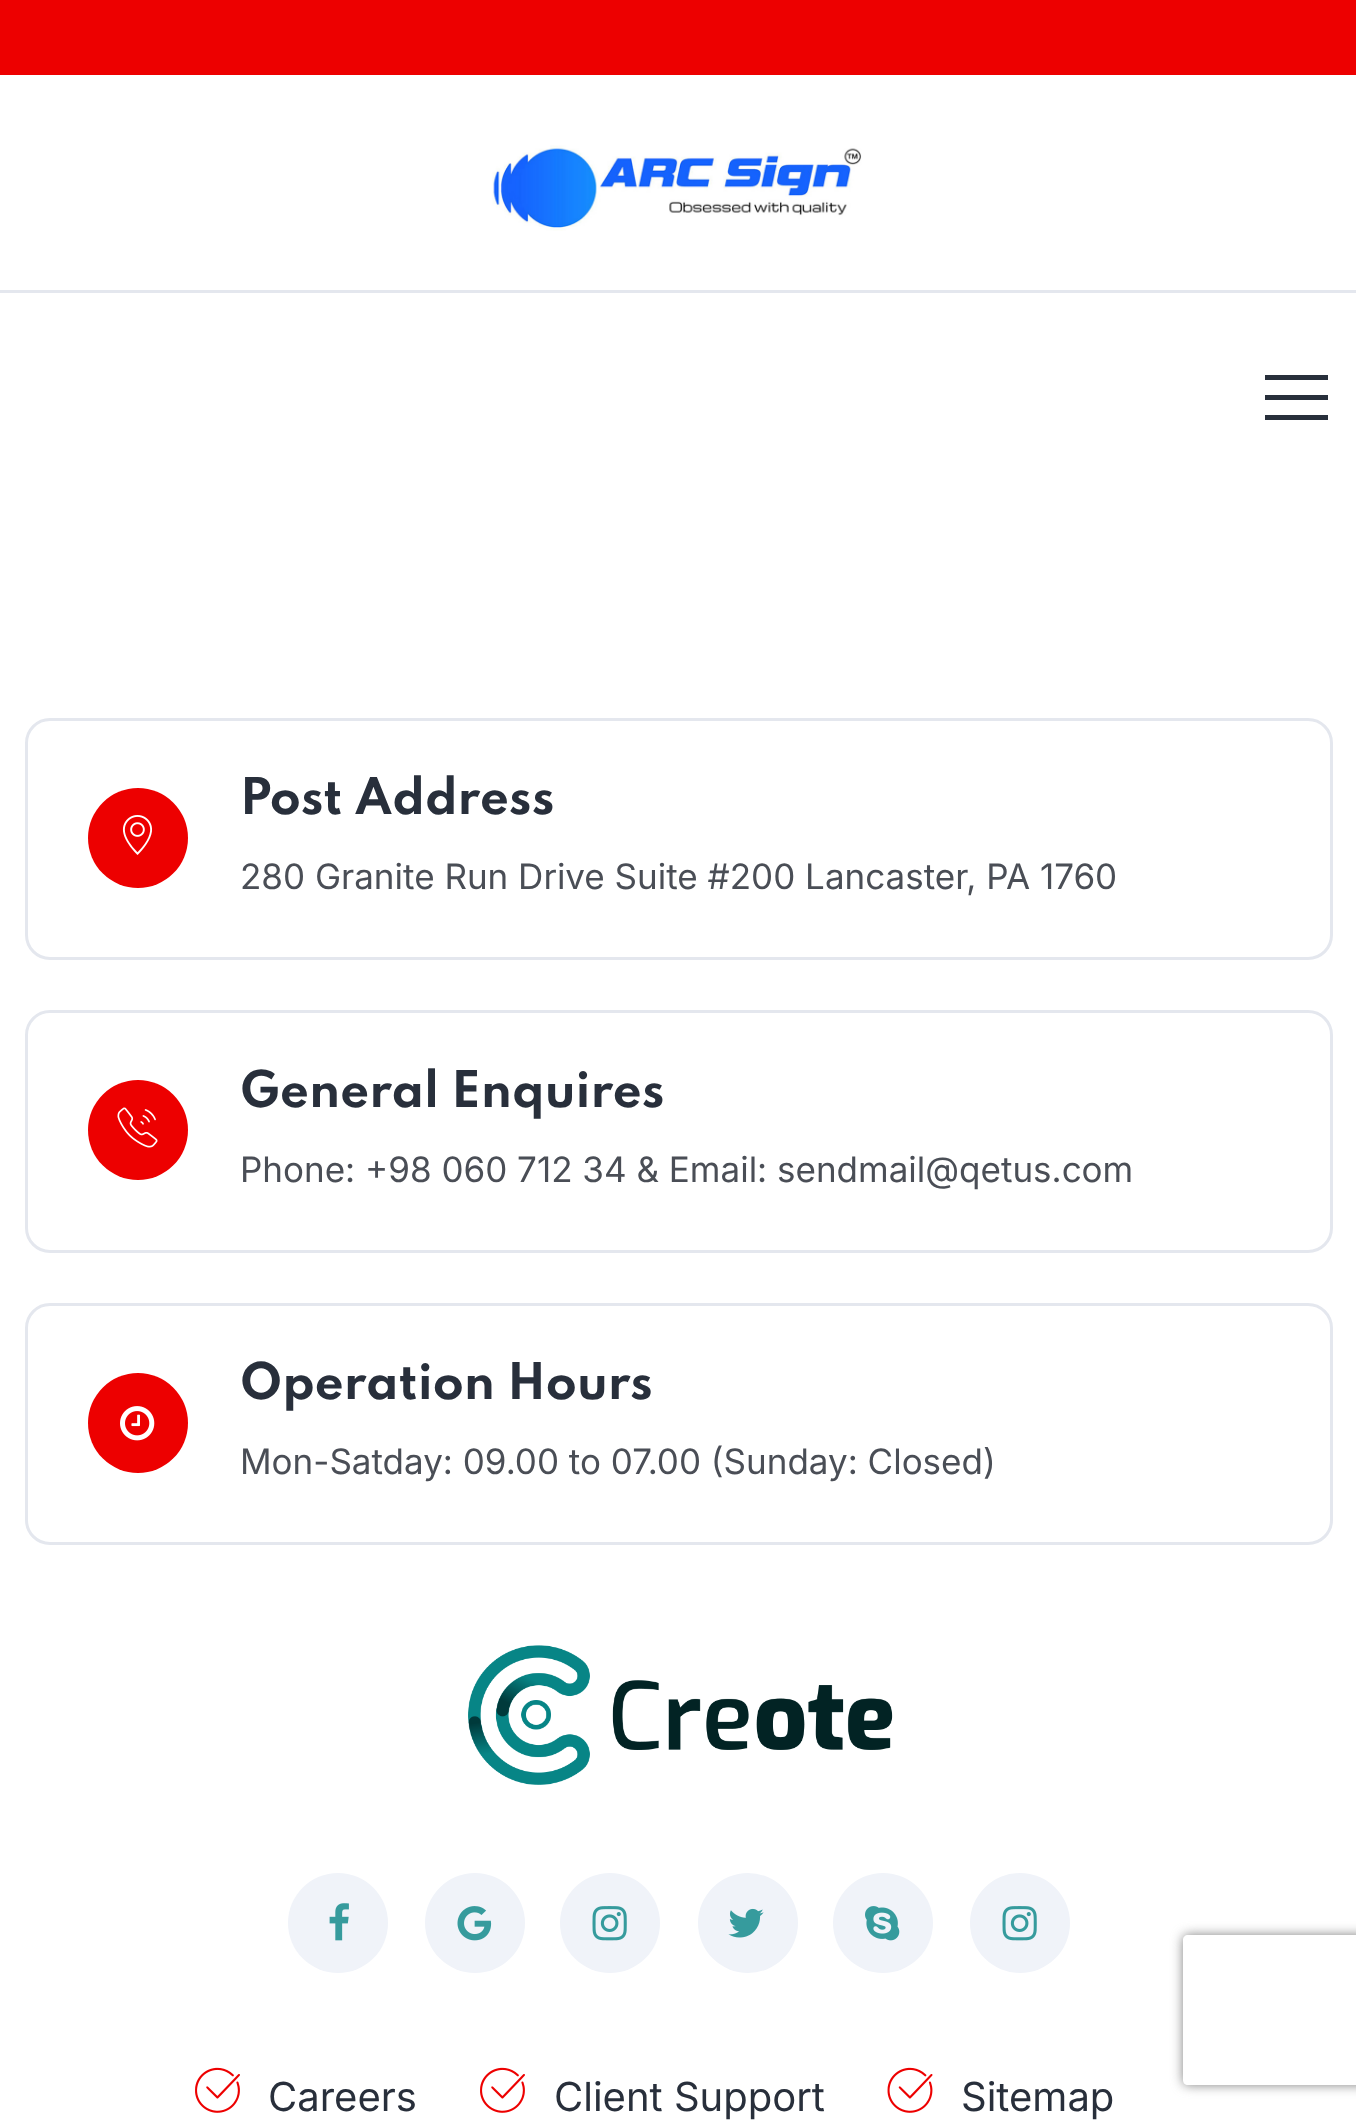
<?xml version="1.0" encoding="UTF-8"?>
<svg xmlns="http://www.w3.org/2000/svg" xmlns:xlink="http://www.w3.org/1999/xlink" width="1356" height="2120">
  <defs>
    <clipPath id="clip1"><path d="M 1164 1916 h 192 v 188 h -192 z m 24 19 h 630 c 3 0 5 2 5 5 v 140 c 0 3 -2 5 -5 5 h -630 c -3 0 -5 -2 -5 -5 v -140 c 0 -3 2 -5 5 -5 z" clip-rule="evenodd" /></clipPath>
  </defs>
  <rect width="100%" height="100%" fill="#ffffff" />
  <rect width="1356" height="75" fill="#ed0000" />
  <rect y="290" width="1356" height="3" fill="#e4e7ee" />
  <image x="492" y="145" width="370" height="86" xlink:href="image1.png" />
  <rect x="1265" y="375" width="63" height="5" fill="#282f3b" />
  <rect x="1265" y="395" width="63" height="5" fill="#282f3b" />
  <rect x="1265" y="415" width="63" height="5" fill="#282f3b" />
  <rect x="26.5" y="719.5" width="1305" height="239" rx="23.5" fill="none" stroke="#e4e7ee" stroke-width="3" />
  <circle cx="138" cy="838" r="50" fill="#ed0000" />
  <image x="122" y="815" width="30" height="40" xlink:href="image2.png" />
  <rect x="26.5" y="1011.5" width="1305" height="240" rx="23.5" fill="none" stroke="#e4e7ee" stroke-width="3" />
  <circle cx="138" cy="1130" r="50" fill="#ed0000" />
  <image x="117" y="1107" width="41" height="41" xlink:href="image3.png" />
  <rect x="26.5" y="1304.5" width="1305" height="239" rx="23.5" fill="none" stroke="#e4e7ee" stroke-width="3" />
  <circle cx="138" cy="1423" r="50" fill="#ed0000" />
  <image x="120" y="1406" width="35" height="35" xlink:href="image4.png" />
  <image x="468" y="1645" width="425" height="140" xlink:href="image5.png" />
  <circle cx="338" cy="1923" r="50" fill="#f0f3f9" />
  <image x="329" y="1903" width="20" height="38" xlink:href="image6.png" />
  <circle cx="475" cy="1923" r="50" fill="#f0f3f9" />
  <image x="457" y="1906" width="35" height="35" xlink:href="image7.png" />
  <circle cx="610" cy="1923" r="50" fill="#f0f3f9" />
  <image x="592" y="1906" width="35" height="35" xlink:href="image8.png" />
  <circle cx="748" cy="1923" r="50" fill="#f0f3f9" />
  <image x="728" y="1908" width="36" height="30" xlink:href="image9.png" />
  <circle cx="883" cy="1923" r="50" fill="#f0f3f9" />
  <image x="865" y="1906" width="35" height="35" xlink:href="image10.png" />
  <circle cx="1020" cy="1923" r="50" fill="#f0f3f9" />
  <image x="1002" y="1906" width="35" height="35" xlink:href="image8.png" />
  <image x="195" y="2067" width="45" height="46" xlink:href="image11.png" />
  <image x="480" y="2067" width="45" height="46" xlink:href="image11.png" />
  <image x="887" y="2067" width="46" height="46" xlink:href="image12.png" />
  <g clip-path="url(#clip1)">
    <rect x="1183" y="1935" width="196" height="150" rx="5" fill="#808080" filter="blur(6px)" />
  </g>
  <text x="240" y="814" style="font-family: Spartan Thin; font-size: 45px; font-weight: bold; fill: #282f3b">Post Address</text>
  <text x="240" y="889" style="font-family: Inter; font-size: 35px; fill: #4a4e56">280 Granite Run Drive Suite #200 Lancaster, PA 1760</text>
  <text x="240" y="1107" style="font-family: Spartan Thin; font-size: 45px; font-weight: bold; fill: #282f3b">General Enquires</text>
  <text x="240" y="1182" style="font-family: Inter; font-size: 35px; fill: #4a4e56">Phone: +98 060 712 34 &amp; Email: sendmail@qetus.com</text>
  <text x="240" y="1399" style="font-family: Spartan Thin; font-size: 45px; font-weight: bold; fill: #282f3b">Operation Hours</text>
  <text x="240" y="1474" style="font-family: Inter; font-size: 35px; fill: #4a4e56">Mon-Satday: 09.00 to 07.00 (Sunday: Closed)</text>
  <text x="268" y="2111" style="font-family: Inter; font-size: 40px; fill: #282f3b">Careers</text>
  <text x="554" y="2111" style="font-family: Inter; font-size: 40px; fill: #282f3b">Client Support</text>
  <text x="961" y="2111" style="font-family: Inter; font-size: 40px; fill: #282f3b">Sitemap</text>
</svg>
